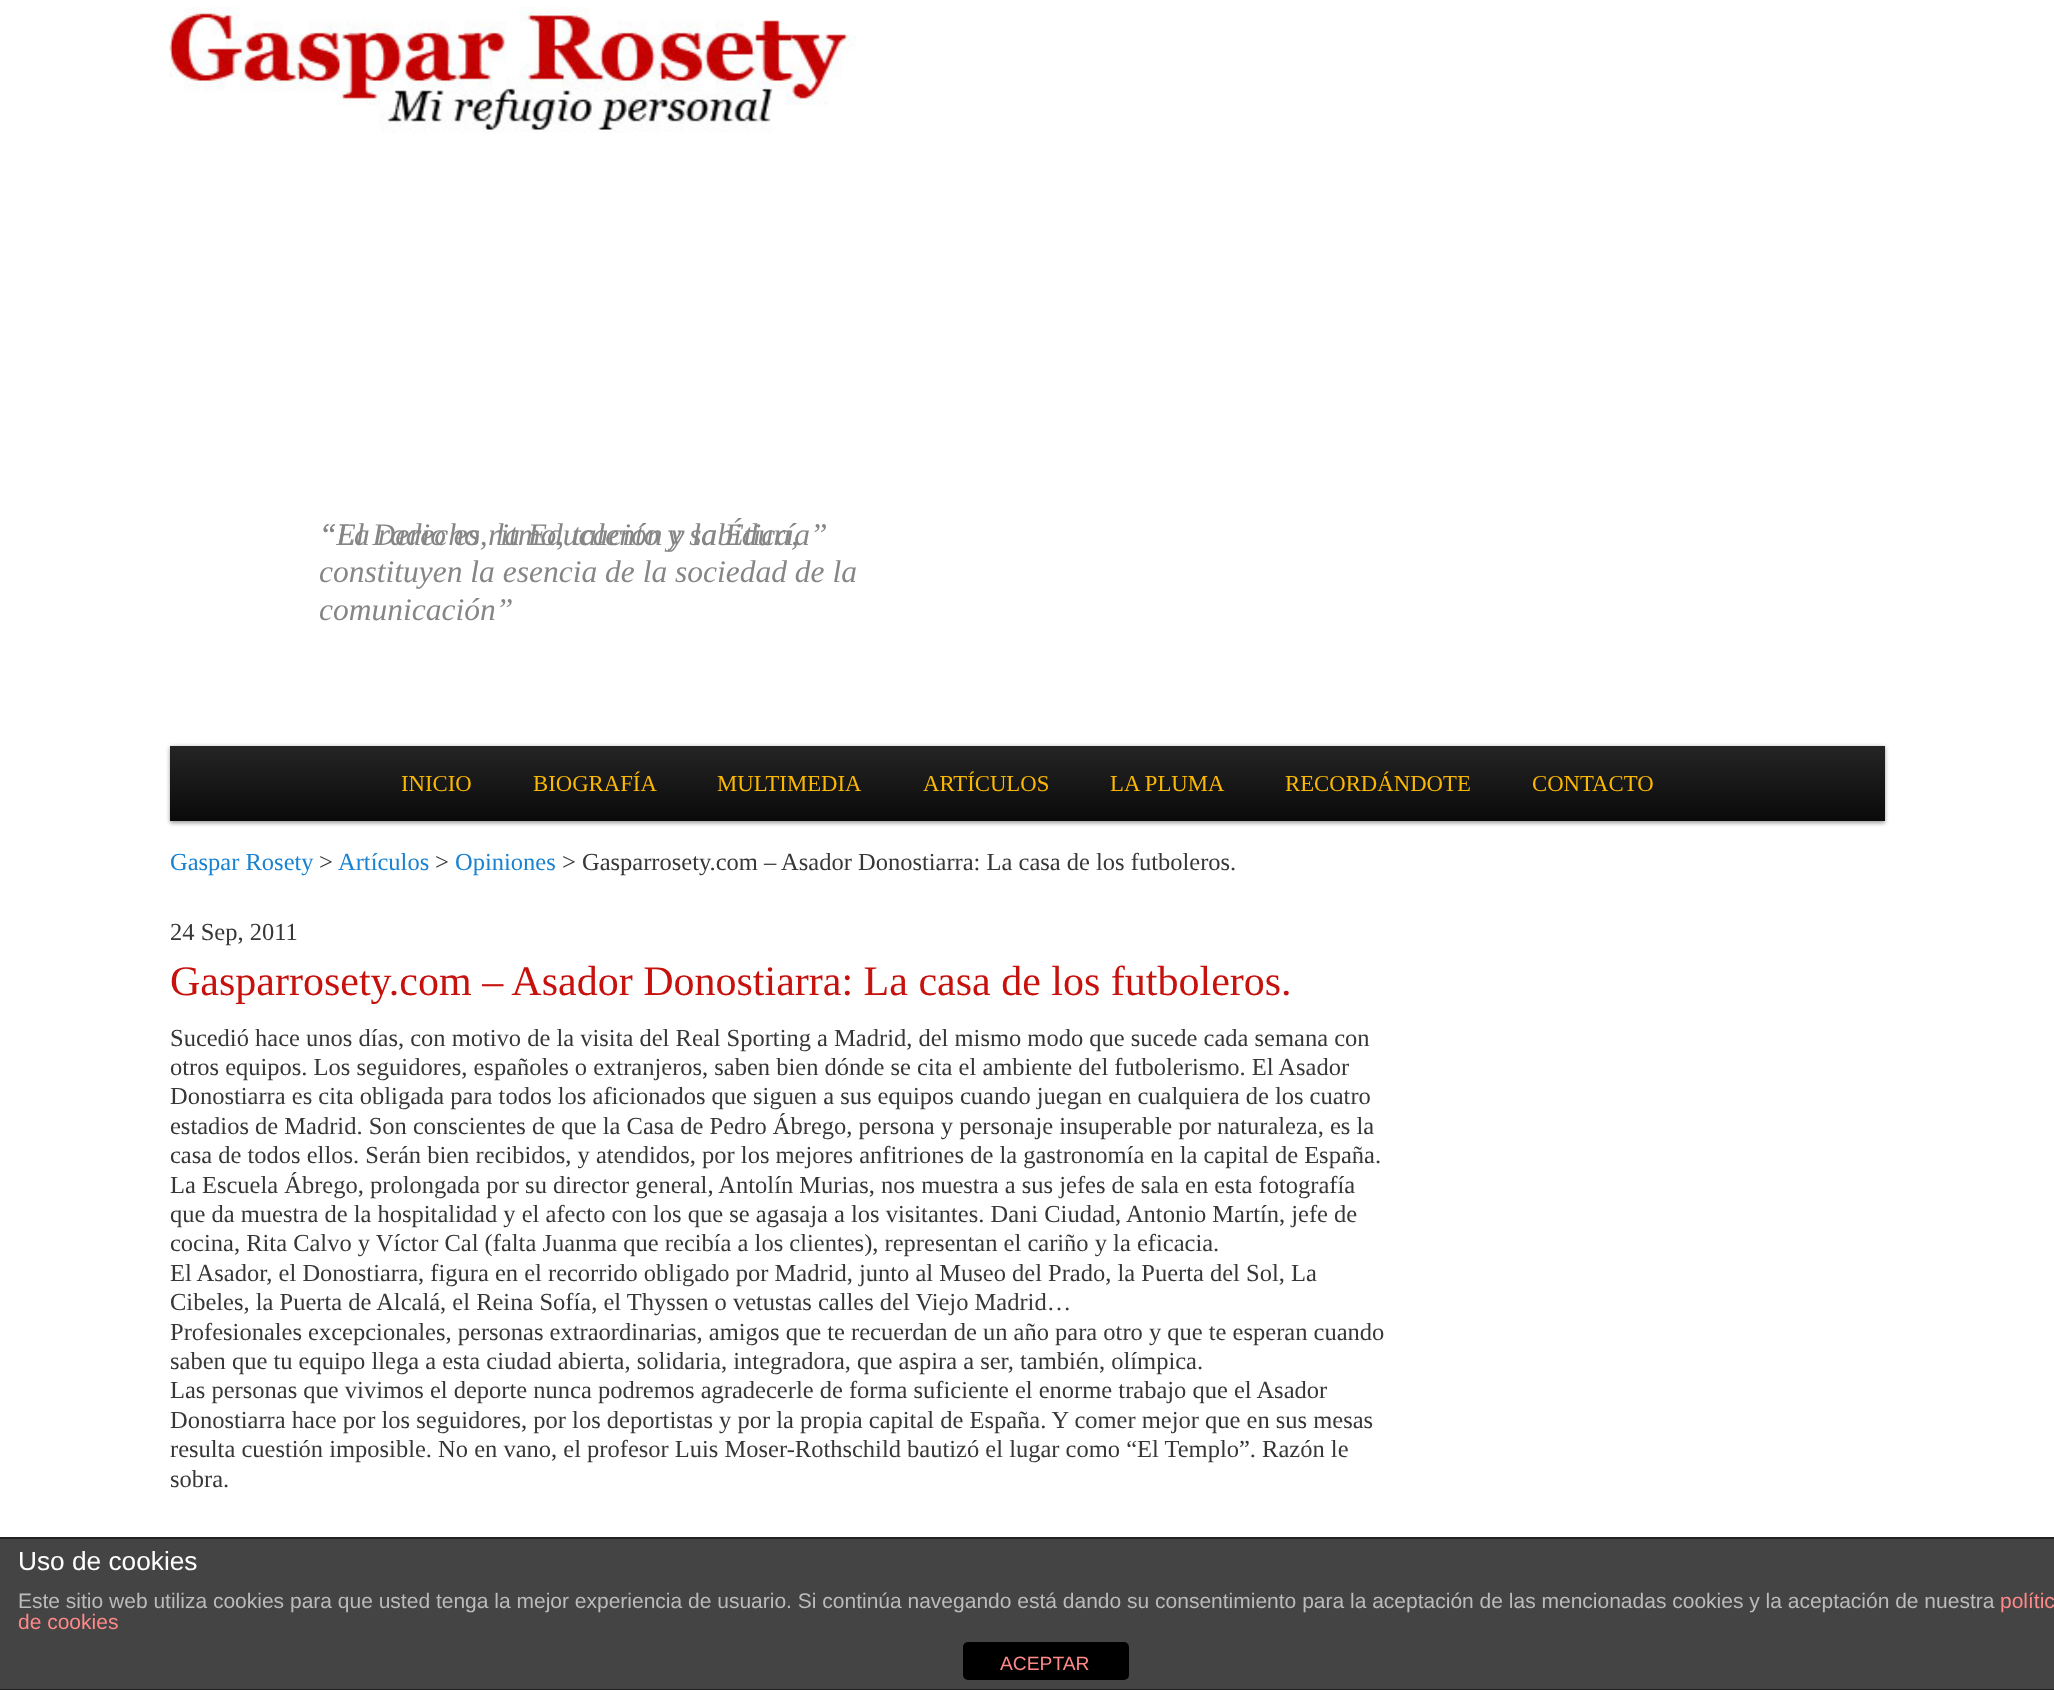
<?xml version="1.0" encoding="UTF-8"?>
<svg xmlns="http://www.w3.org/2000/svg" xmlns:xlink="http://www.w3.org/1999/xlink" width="2054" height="1690">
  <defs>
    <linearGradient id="g1" gradientUnits="userSpaceOnUse" x1="1027" y1="745" x2="1027" y2="821"><stop offset="0" stop-color="#252525" /><stop offset="1" stop-color="#0a0a0a" /></linearGradient>
  </defs>
  <rect width="100%" height="100%" fill="#ffffff" />
  <image x="169" y="7" width="687" height="126" xlink:href="image1.png" />
  <rect x="170" y="747" width="1715" height="76" fill="#000000" fill-opacity="0.4" filter="blur(2px)" />
  <rect x="170" y="746" width="1715" height="75" fill="url(#g1)" />
  <rect y="1539" width="2054" height="150" fill="#444444" />
  <rect y="1537" width="2054" height="2" fill="#222222" />
  <rect y="1689" width="2054" height="1" fill="#222222" />
  <rect x="963" y="1642" width="166" height="38" rx="5" fill="#000000" />
  <text x="319" y="545" style="font-family: Liberation Serif; font-size: 31.5px; font-style: italic; fill: #878686">“El Derecho, la Educación y la Ética,</text>
  <text x="319" y="582" style="font-family: Liberation Serif; font-size: 31.5px; font-style: italic; fill: #878686">constituyen la esencia de la sociedad de la</text>
  <text x="319" y="620" style="font-family: Liberation Serif; font-size: 31.5px; font-style: italic; fill: #878686">comunicación”</text>
  <text x="319" y="545" style="font-family: Liberation Serif; font-size: 31.5px; font-style: italic; fill: #878686">“La radio es ritmo, talento y sabiduría”</text>
  <text x="401" y="791" style="font-family: Liberation Serif; font-size: 22.75px; fill: #fab704">INICIO</text>
  <text x="533" y="791" style="font-family: Liberation Serif; font-size: 22.75px; fill: #fab704">BIOGRAFÍA</text>
  <text x="717" y="791" style="font-family: Liberation Serif; font-size: 22.75px; fill: #fab704">MULTIMEDIA</text>
  <text x="923" y="791" style="font-family: Liberation Serif; font-size: 22.75px; fill: #fab704">ARTÍCULOS</text>
  <text x="1110" y="791" style="font-family: Liberation Serif; font-size: 22.75px; fill: #fab704">LA PLUMA</text>
  <text x="1285" y="791" style="font-family: Liberation Serif; font-size: 22.75px; fill: #fab704">RECORDÁNDOTE</text>
  <text x="1532" y="791" style="font-family: Liberation Serif; font-size: 22.75px; fill: #fab704">CONTACTO</text>
  <text x="170" y="870" style="font-family: Liberation Serif; font-size: 24.5px; fill: #1982d1">Gaspar Rosety</text>
  <text x="319" y="870" style="font-family: Liberation Serif; font-size: 24.5px; fill: #373737">&gt;</text>
  <text x="338" y="870" style="font-family: Liberation Serif; font-size: 24.5px; fill: #1982d1">Artículos</text>
  <text x="435" y="870" style="font-family: Liberation Serif; font-size: 24.5px; fill: #373737">&gt;</text>
  <text x="455" y="870" style="font-family: Liberation Serif; font-size: 24.5px; fill: #1982d1">Opiniones</text>
  <text x="562" y="870" style="font-family: Liberation Serif; font-size: 24.5px; fill: #373737">&gt; Gasparrosety.com – Asador Donostiarra: La casa de los futboleros.</text>
  <text x="170" y="940" style="font-family: Liberation Serif; font-size: 24.5px; fill: #373737">24 Sep, 2011</text>
  <text x="170" y="995" style="font-family: Liberation Serif; font-size: 42px; fill: #c6110c">Gasparrosety.com – Asador Donostiarra: La casa de los futboleros.</text>
  <text x="170" y="1046" style="font-family: Liberation Serif; font-size: 24.5px; fill: #373737">Sucedió hace unos días, con motivo de la visita del Real Sporting a Madrid, del mismo modo que sucede cada semana con</text>
  <text x="170" y="1075" style="font-family: Liberation Serif; font-size: 24.5px; fill: #373737">otros equipos. Los seguidores, españoles o extranjeros, saben bien dónde se cita el ambiente del futbolerismo. El Asador</text>
  <text x="170" y="1104" style="font-family: Liberation Serif; font-size: 24.5px; fill: #373737">Donostiarra es cita obligada para todos los aficionados que siguen a sus equipos cuando juegan en cualquiera de los cuatro</text>
  <text x="170" y="1134" style="font-family: Liberation Serif; font-size: 24.5px; fill: #373737">estadios de Madrid. Son conscientes de que la Casa de Pedro Ábrego, persona y personaje insuperable por naturaleza, es la</text>
  <text x="170" y="1163" style="font-family: Liberation Serif; font-size: 24.5px; fill: #373737">casa de todos ellos. Serán bien recibidos, y atendidos, por los mejores anfitriones de la gastronomía en la capital de España.</text>
  <text x="170" y="1193" style="font-family: Liberation Serif; font-size: 24.5px; fill: #373737">La Escuela Ábrego, prolongada por su director general, Antolín Murias, nos muestra a sus jefes de sala en esta fotografía</text>
  <text x="170" y="1222" style="font-family: Liberation Serif; font-size: 24.5px; fill: #373737">que da muestra de la hospitalidad y el afecto con los que se agasaja a los visitantes. Dani Ciudad, Antonio Martín, jefe de</text>
  <text x="170" y="1251" style="font-family: Liberation Serif; font-size: 24.5px; fill: #373737">cocina, Rita Calvo y Víctor Cal (falta Juanma que recibía a los clientes), representan el cariño y la eficacia.</text>
  <text x="170" y="1281" style="font-family: Liberation Serif; font-size: 24.5px; fill: #373737">El Asador, el Donostiarra, figura en el recorrido obligado por Madrid, junto al Museo del Prado, la Puerta del Sol, La</text>
  <text x="170" y="1310" style="font-family: Liberation Serif; font-size: 24.5px; fill: #373737">Cibeles, la Puerta de Alcalá, el Reina Sofía, el Thyssen o vetustas calles del Viejo Madrid…</text>
  <text x="170" y="1340" style="font-family: Liberation Serif; font-size: 24.5px; fill: #373737">Profesionales excepcionales, personas extraordinarias, amigos que te recuerdan de un año para otro y que te esperan cuando</text>
  <text x="170" y="1369" style="font-family: Liberation Serif; font-size: 24.5px; fill: #373737">saben que tu equipo llega a esta ciudad abierta, solidaria, integradora, que aspira a ser, también, olímpica.</text>
  <text x="170" y="1398" style="font-family: Liberation Serif; font-size: 24.5px; fill: #373737">Las personas que vivimos el deporte nunca podremos agradecerle de forma suficiente el enorme trabajo que el Asador</text>
  <text x="170" y="1428" style="font-family: Liberation Serif; font-size: 24.5px; fill: #373737">Donostiarra hace por los seguidores, por los deportistas y por la propia capital de España. Y comer mejor que en sus mesas</text>
  <text x="170" y="1457" style="font-family: Liberation Serif; font-size: 24.5px; fill: #373737">resulta cuestión imposible. No en vano, el profesor Luis Moser-Rothschild bautizó el lugar como “El Templo”. Razón le</text>
  <text x="170" y="1487" style="font-family: Liberation Serif; font-size: 24.5px; fill: #373737">sobra.</text>
  <text x="18" y="1570" style="font-family: Liberation Sans; font-size: 26.25px; fill: #ffffff">Uso de cookies</text>
  <text x="18" y="1608" style="font-family: Liberation Sans; font-size: 21px; fill: #bbbbbb">Este sitio web utiliza cookies para que usted tenga la mejor experiencia de usuario. Si continúa navegando está dando su consentimiento para la aceptación de las mencionadas cookies y la aceptación de nuestra</text>
  <text x="2000" y="1608" style="font-family: Liberation Sans; font-size: 21px; fill: #ff8888">polític</text>
  <text x="18" y="1629" style="font-family: Liberation Sans; font-size: 21px; fill: #ff8888">de cookies</text>
  <text x="1000" y="1670" style="font-family: Liberation Sans; font-size: 19.25px; fill: #ff8888">ACEPTAR</text>
</svg>
